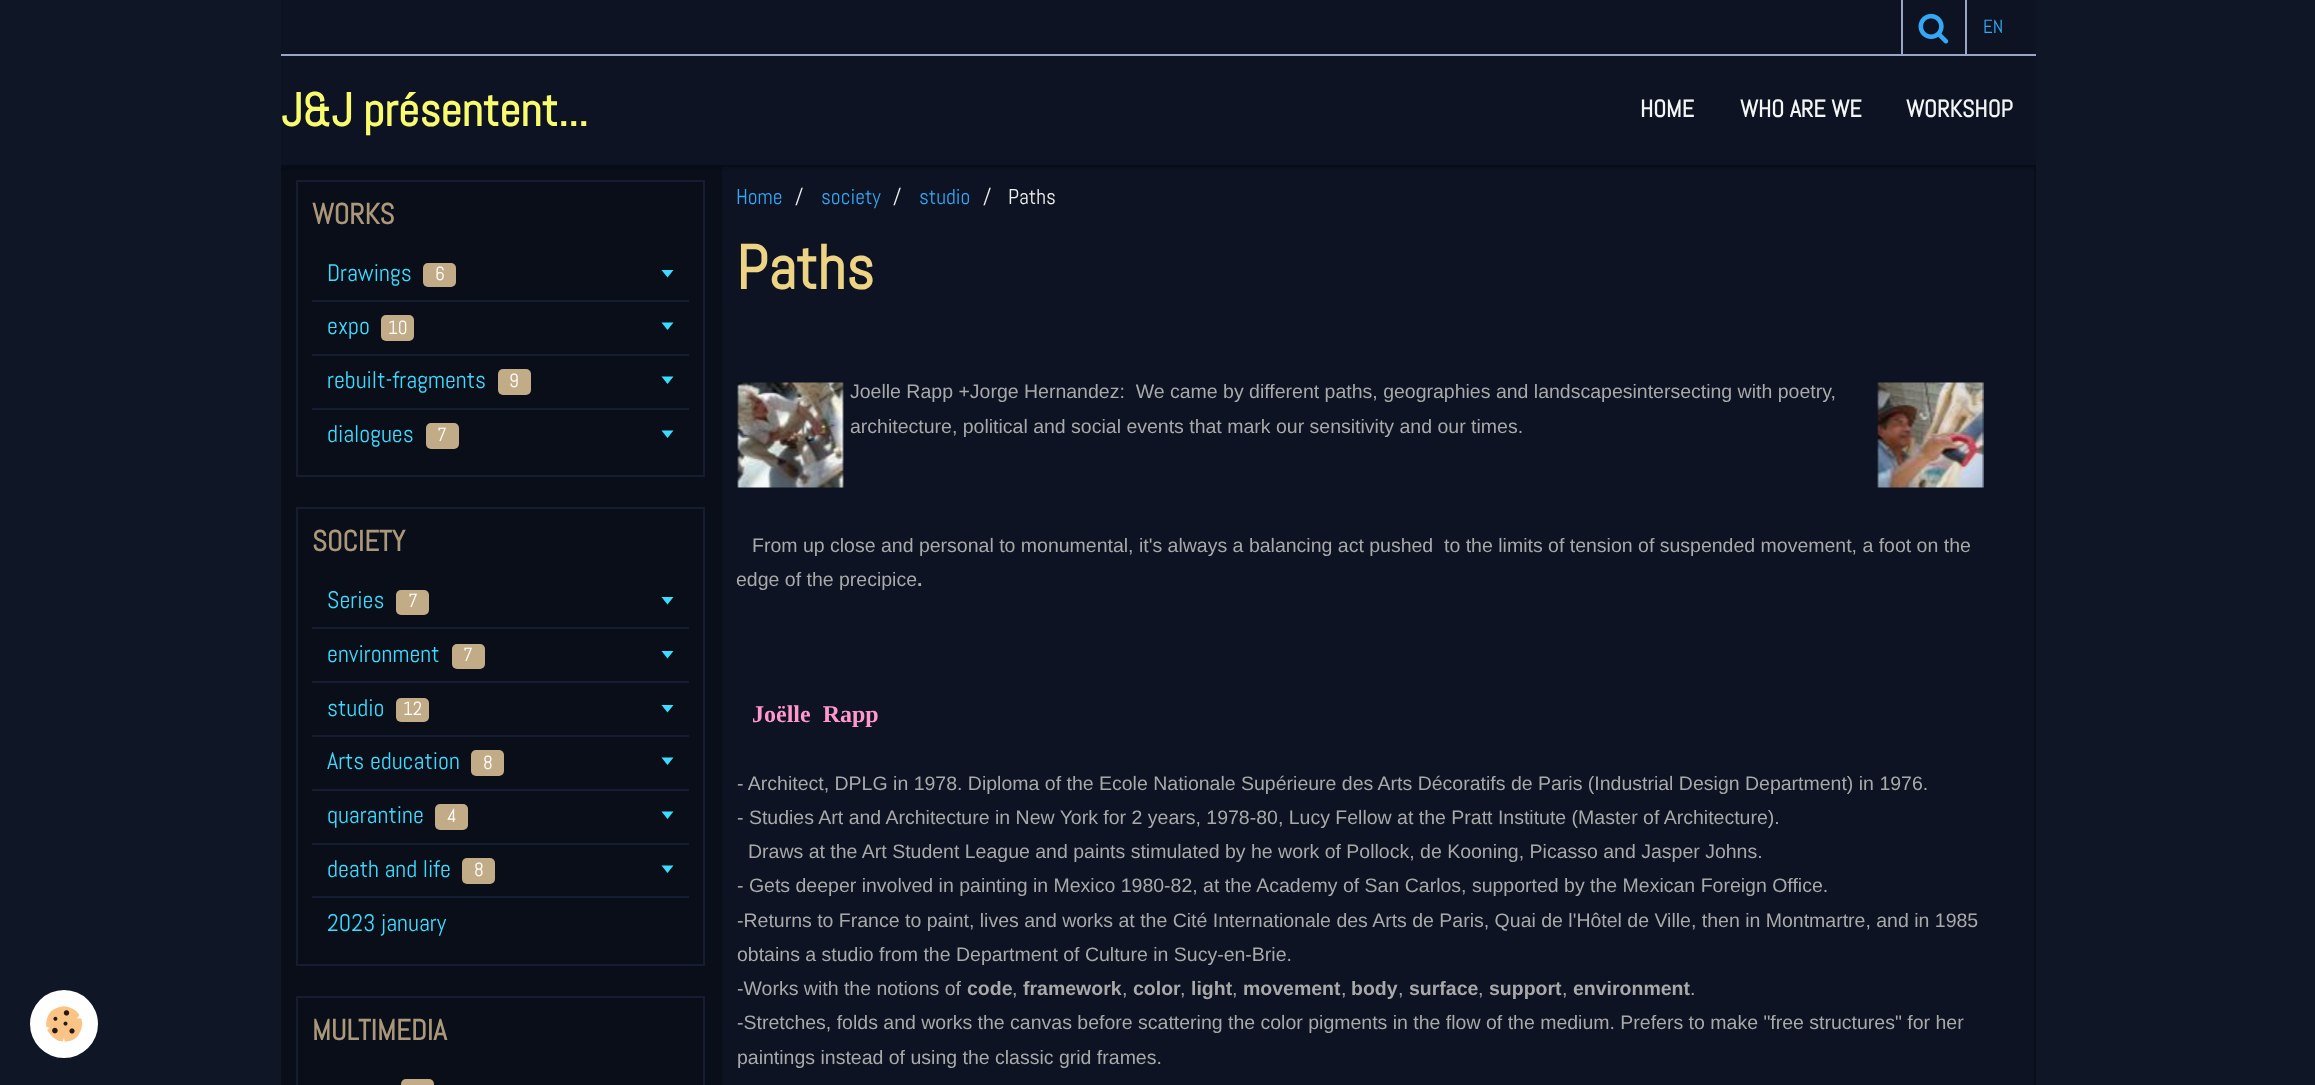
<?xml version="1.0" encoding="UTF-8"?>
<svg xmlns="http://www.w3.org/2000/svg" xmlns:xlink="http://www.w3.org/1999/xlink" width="2315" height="1085">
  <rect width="100%" height="100%" fill="#0f1626" />
  <rect x="281" y="165" width="439" height="920" fill="#0a0e19" />
  <rect x="721" y="166" width="1314" height="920" fill="#0d1322" stroke="#0a0e19" stroke-width="2" />
  <path d="M 281 165 v 5 h 1755 v -165 v 160 z" fill="#000000" fill-opacity="0.1" />
  <rect x="281" width="1755" height="165" fill="#0d1322" />
  <rect x="281" y="54" width="1755" height="2" fill="#9aa6c5" />
  <rect x="1901" width="2" height="54" fill="#9aa6c5" />
  <image x="1918" y="13" width="31" height="31" xlink:href="image1.png" />
  <rect x="1965" width="2" height="54" fill="#9aa6c5" />
  <circle cx="64" cy="1024" r="34" fill="#ffffff" />
  <image x="46" y="1006" width="37" height="36" xlink:href="image2.png" />
  <rect x="297" y="181" width="407" height="295" fill="none" stroke="#141d31" stroke-width="2" />
  <rect x="312" y="300" width="377" height="2" fill="#141d31" />
  <rect x="423" y="263" width="33" height="24" rx="5" fill="#c2ac88" />
  <path d="M 661.5 270 h 12 l -6 7.5 z" fill="#3ddbff" />
  <rect x="312" y="354" width="377" height="2" fill="#141d31" />
  <rect x="381" y="315" width="33" height="26" rx="5" fill="#c2ac88" />
  <path d="M 661.5 322.5 h 12 l -6 7.5 z" fill="#3ddbff" />
  <rect x="312" y="408" width="377" height="2" fill="#141d31" />
  <rect x="498" y="369" width="33" height="26" rx="5" fill="#c2ac88" />
  <path d="M 661.5 376.5 h 12 l -6 7.5 z" fill="#3ddbff" />
  <rect x="426" y="423" width="33" height="26" rx="5" fill="#c2ac88" />
  <path d="M 661.5 430.5 h 12 l -6 7.5 z" fill="#3ddbff" />
  <rect x="297" y="508" width="407" height="457" fill="none" stroke="#141d31" stroke-width="2" />
  <rect x="312" y="627" width="377" height="2" fill="#141d31" />
  <rect x="396" y="590" width="33" height="25" rx="5" fill="#c2ac88" />
  <path d="M 661.5 597 h 12 l -6 7.5 z" fill="#3ddbff" />
  <rect x="312" y="681" width="377" height="2" fill="#141d31" />
  <rect x="452" y="644" width="33" height="25" rx="5" fill="#c2ac88" />
  <path d="M 661.5 651 h 12 l -6 7.5 z" fill="#3ddbff" />
  <rect x="312" y="735" width="377" height="2" fill="#141d31" />
  <rect x="396" y="698" width="33" height="24" rx="5" fill="#c2ac88" />
  <path d="M 661.5 705 h 12 l -6 7.5 z" fill="#3ddbff" />
  <rect x="312" y="789" width="377" height="2" fill="#141d31" />
  <rect x="471" y="750" width="33" height="26" rx="5" fill="#c2ac88" />
  <path d="M 661.5 757.5 h 12 l -6 7.5 z" fill="#3ddbff" />
  <rect x="312" y="843" width="377" height="2" fill="#141d31" />
  <rect x="435" y="804" width="33" height="26" rx="5" fill="#c2ac88" />
  <path d="M 661.5 811.5 h 12 l -6 7.5 z" fill="#3ddbff" />
  <rect x="312" y="896" width="377" height="2" fill="#141d31" />
  <rect x="462" y="858" width="33" height="26" rx="5" fill="#c2ac88" />
  <path d="M 661.5 865.5 h 12 l -6 7.5 z" fill="#3ddbff" />
  <rect x="297" y="997" width="407" height="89" fill="none" stroke="#141d31" stroke-width="2" />
  <rect x="401" y="1079" width="33" height="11" rx="5" fill="#c2ac88" />
  <image x="737" y="382" width="107" height="106" xlink:href="image3.png" />
  <image x="1877" y="382" width="107" height="106" xlink:href="image4.png" />
  <text x="1983" y="33" style="font-family: Abel; font-size: 19px; fill: #34a7f5">EN</text>
  <text x="281" y="126" style="font-family: Abel; font-size: 46.75px; font-weight: bold; fill: #f9fb6e">J&amp;J présentent...</text>
  <text x="1640" y="117" style="font-family: Abel; font-size: 24px; font-weight: bold; fill: #f3f6f4">HOME</text>
  <text x="1740" y="117" style="font-family: Abel; font-size: 24px; font-weight: bold; fill: #f3f6f4">WHO ARE WE</text>
  <text x="1906" y="117" style="font-family: Abel; font-size: 24px; font-weight: bold; fill: #f3f6f4">WORKSHOP</text>
  <text x="312" y="224" style="font-family: Abel; font-size: 29px; font-weight: bold; fill: #ab987a">WORKS</text>
  <text x="327" y="281" style="font-family: Abel; font-size: 24px; fill: #3ddbff">Drawings</text>
  <text x="435" y="280" style="font-family: Abel; font-size: 19px; fill: #ffffff">6</text>
  <text x="327" y="334" style="font-family: Abel; font-size: 24px; fill: #3ddbff">expo</text>
  <text x="388" y="334" style="font-family: Abel; font-size: 19px; fill: #ffffff">10</text>
  <text x="327" y="388" style="font-family: Abel; font-size: 24px; fill: #3ddbff">rebuilt-fragments</text>
  <text x="509" y="387" style="font-family: Abel; font-size: 19px; fill: #ffffff">9</text>
  <text x="327" y="442" style="font-family: Abel; font-size: 24px; fill: #3ddbff">dialogues</text>
  <text x="437" y="441" style="font-family: Abel; font-size: 19px; fill: #ffffff">7</text>
  <text x="312" y="551" style="font-family: Abel; font-size: 29px; font-weight: bold; fill: #ab987a">SOCIETY</text>
  <text x="327" y="608" style="font-family: Abel; font-size: 24px; fill: #3ddbff">Series</text>
  <text x="408" y="607" style="font-family: Abel; font-size: 19px; fill: #ffffff">7</text>
  <text x="327" y="662" style="font-family: Abel; font-size: 24px; fill: #3ddbff">environment</text>
  <text x="463" y="661" style="font-family: Abel; font-size: 19px; fill: #ffffff">7</text>
  <text x="327" y="716" style="font-family: Abel; font-size: 24px; fill: #3ddbff">studio</text>
  <text x="403" y="715" style="font-family: Abel; font-size: 19px; fill: #ffffff">12</text>
  <text x="327" y="769" style="font-family: Abel; font-size: 24px; fill: #3ddbff">Arts education</text>
  <text x="483" y="769" style="font-family: Abel; font-size: 19px; fill: #ffffff">8</text>
  <text x="327" y="823" style="font-family: Abel; font-size: 24px; fill: #3ddbff">quarantine</text>
  <text x="447" y="822" style="font-family: Abel; font-size: 19px; fill: #ffffff">4</text>
  <text x="327" y="877" style="font-family: Abel; font-size: 24px; fill: #3ddbff">death and life</text>
  <text x="474" y="876" style="font-family: Abel; font-size: 19px; fill: #ffffff">8</text>
  <text x="327" y="931" style="font-family: Abel; font-size: 24px; fill: #3ddbff">2023 january</text>
  <text x="312" y="1040" style="font-family: Abel; font-size: 29px; font-weight: bold; fill: #ab987a">MULTIMEDIA</text>
  <text x="736" y="204" style="font-family: Abel; font-size: 21.5px; fill: #34a7f5">Home</text>
  <text x="795" y="204" style="font-family: Abel; font-size: 21.5px; fill: #f0f0f0">/</text>
  <text x="821" y="204" style="font-family: Abel; font-size: 21.5px; fill: #34a7f5">society</text>
  <text x="893" y="204" style="font-family: Abel; font-size: 21.5px; fill: #f0f0f0">/</text>
  <text x="919" y="204" style="font-family: Abel; font-size: 21.5px; fill: #34a7f5">studio</text>
  <text x="983" y="204" style="font-family: Abel; font-size: 21.5px; fill: #f0f0f0">/</text>
  <text x="1008" y="204" style="font-family: Abel; font-size: 21.5px; fill: #f0f0f0">Paths</text>
  <text x="736" y="289" style="font-family: Abel; font-size: 62px; font-weight: bold; fill: #edd484">Paths</text>
  <text x="850" y="398" style="font-family: Liberation Sans; font-size: 19.5px; fill: #a9a9a9" xml:space="preserve">Joelle Rapp +Jorge Hernandez:  We came by different paths, geographies and landscapesintersecting with poetry,</text>
  <text x="850" y="433" style="font-family: Liberation Sans; font-size: 19.5px; fill: #a9a9a9">architecture, political and social events that mark our sensitivity and our times.</text>
  <text x="752" y="552" style="font-family: Liberation Sans; font-size: 19.5px; fill: #a9a9a9" xml:space="preserve">From up close and personal to monumental, it's always a balancing act pushed  to the limits of tension of suspended movement, a foot on the</text>
  <text x="736" y="586" style="font-family: Liberation Sans; font-size: 19.5px; fill: #a9a9a9">edge of the precipice</text>
  <text x="917" y="586" style="font-family: Liberation Sans; font-size: 19.5px; font-weight: bold; fill: #a9a9a9">.</text>
  <text x="752" y="722" style="font-family: Liberation Serif; font-size: 24px; font-weight: bold; fill: #ff99cc" xml:space="preserve">Joëlle  Rapp</text>
  <text x="737" y="790" style="font-family: Liberation Sans; font-size: 19.5px; fill: #a9a9a9">- Architect, DPLG in 1978. Diploma of the Ecole Nationale Supérieure des Arts Décoratifs de Paris (Industrial Design Department) in 1976.</text>
  <text x="737" y="824" style="font-family: Liberation Sans; font-size: 19.5px; fill: #a9a9a9">- Studies Art and Architecture in New York for 2 years, 1978-80, Lucy Fellow at the Pratt Institute (Master of Architecture).</text>
  <text x="748" y="858" style="font-family: Liberation Sans; font-size: 19.5px; fill: #a9a9a9">Draws at the Art Student League and paints stimulated by he work of Pollock, de Kooning, Picasso and Jasper Johns.</text>
  <text x="737" y="892" style="font-family: Liberation Sans; font-size: 19.5px; fill: #a9a9a9">- Gets deeper involved in painting in Mexico 1980-82, at the Academy of San Carlos, supported by the Mexican Foreign Office.</text>
  <text x="737" y="927" style="font-family: Liberation Sans; font-size: 19.5px; fill: #a9a9a9">-Returns to France to paint, lives and works at the Cité Internationale des Arts de Paris, Quai de l'Hôtel de Ville, then in Montmartre, and in 1985</text>
  <text x="737" y="961" style="font-family: Liberation Sans; font-size: 19.5px; fill: #a9a9a9">obtains a studio from the Department of Culture in Sucy-en-Brie.</text>
  <text x="737" y="995" style="font-family: Liberation Sans; font-size: 19.5px; fill: #a9a9a9">-Works with the notions of</text>
  <text x="967" y="995" style="font-family: Liberation Sans; font-size: 19.5px; font-weight: bold; fill: #a9a9a9">code</text>
  <text x="1012" y="995" style="font-family: Liberation Sans; font-size: 19.5px; fill: #a9a9a9">,</text>
  <text x="1023" y="995" style="font-family: Liberation Sans; font-size: 19.5px; font-weight: bold; fill: #a9a9a9">framework</text>
  <text x="1122" y="995" style="font-family: Liberation Sans; font-size: 19.5px; fill: #a9a9a9">,</text>
  <text x="1133" y="995" style="font-family: Liberation Sans; font-size: 19.5px; font-weight: bold; fill: #a9a9a9">color</text>
  <text x="1180" y="995" style="font-family: Liberation Sans; font-size: 19.5px; fill: #a9a9a9">,</text>
  <text x="1191" y="995" style="font-family: Liberation Sans; font-size: 19.5px; font-weight: bold; fill: #a9a9a9">light</text>
  <text x="1232" y="995" style="font-family: Liberation Sans; font-size: 19.5px; fill: #a9a9a9">,</text>
  <text x="1243" y="995" style="font-family: Liberation Sans; font-size: 19.5px; font-weight: bold; fill: #a9a9a9">movement</text>
  <text x="1341" y="995" style="font-family: Liberation Sans; font-size: 19.5px; fill: #a9a9a9">,</text>
  <text x="1351" y="995" style="font-family: Liberation Sans; font-size: 19.5px; font-weight: bold; fill: #a9a9a9">body</text>
  <text x="1398" y="995" style="font-family: Liberation Sans; font-size: 19.5px; fill: #a9a9a9">,</text>
  <text x="1409" y="995" style="font-family: Liberation Sans; font-size: 19.5px; font-weight: bold; fill: #a9a9a9">surface</text>
  <text x="1478" y="995" style="font-family: Liberation Sans; font-size: 19.5px; fill: #a9a9a9">,</text>
  <text x="1489" y="995" style="font-family: Liberation Sans; font-size: 19.5px; font-weight: bold; fill: #a9a9a9">support</text>
  <text x="1562" y="995" style="font-family: Liberation Sans; font-size: 19.5px; fill: #a9a9a9">,</text>
  <text x="1573" y="995" style="font-family: Liberation Sans; font-size: 19.5px; font-weight: bold; fill: #a9a9a9">environment</text>
  <text x="1690" y="995" style="font-family: Liberation Sans; font-size: 19.5px; fill: #a9a9a9">.</text>
  <text x="737" y="1029" style="font-family: Liberation Sans; font-size: 19.5px; fill: #a9a9a9">-Stretches, folds and works the canvas before scattering the color pigments in the flow of the medium. Prefers to make "free structures" for her</text>
  <text x="737" y="1064" style="font-family: Liberation Sans; font-size: 19.5px; fill: #a9a9a9">paintings instead of using the classic grid frames.</text>
</svg>
